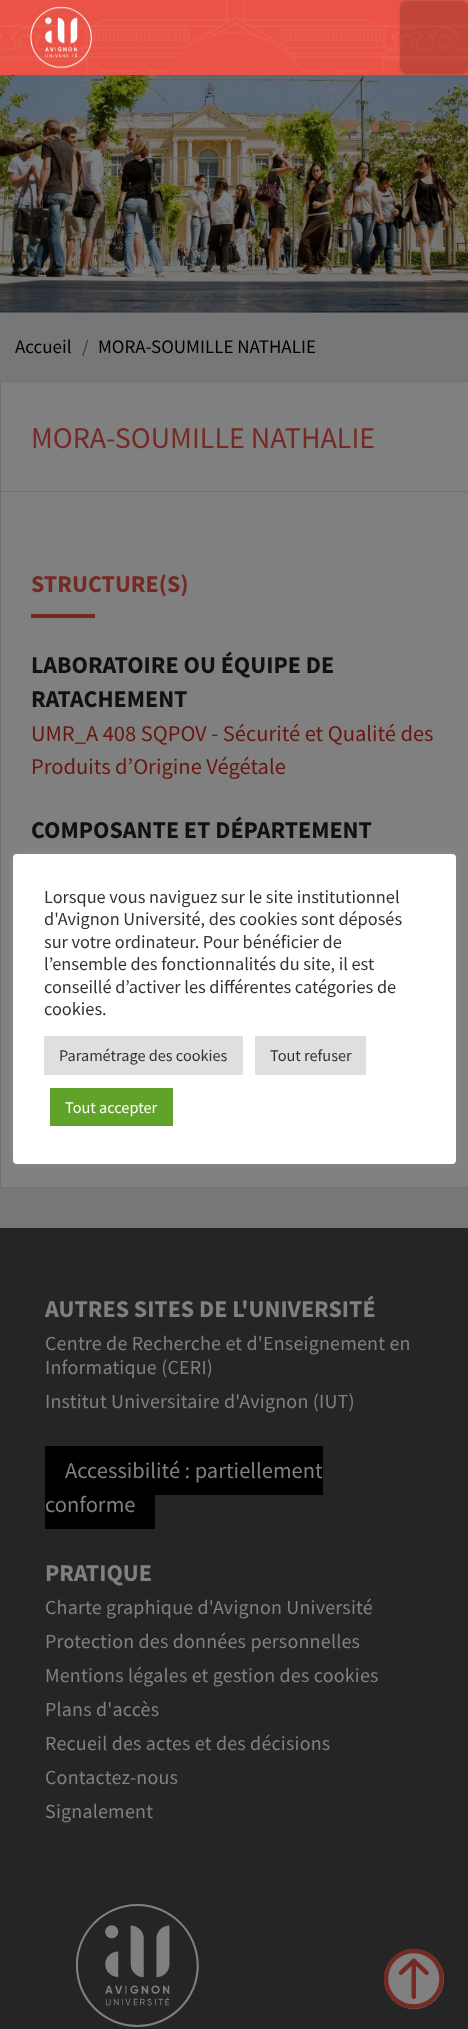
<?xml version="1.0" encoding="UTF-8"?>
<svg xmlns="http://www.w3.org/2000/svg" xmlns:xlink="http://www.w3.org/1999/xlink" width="468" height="2029">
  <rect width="100%" height="100%" fill="#777777" />
  <rect width="468" height="75" fill="#ea5346" />
  <image x="0" y="0" width="468" height="75" xlink:href="image1.png" />
  <image x="30" y="6" width="62" height="63" xlink:href="image2.png" />
  <rect x="399" width="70" height="75" rx="8" fill="#000000" fill-opacity="0.17" />
  <rect x="399.5" y="0.5" width="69" height="74" rx="7.5" fill="none" stroke="#ffffff" stroke-opacity="0.1" />
  <image x="0" y="75" width="468" height="238" xlink:href="image3.png" />
  <rect x="0.5" y="381.5" width="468" height="806" fill="#808080" stroke="#6f6f6f" />
  <rect x="1" y="491" width="467" height="1" fill="#6f6f6f" />
  <rect x="31" y="614" width="64" height="4" fill="#752a23" />
  <rect x="13" y="853" width="443" height="310" rx="4" fill="#acabab" fill-opacity="0.3" filter="blur(6px)" />
  <rect x="13" y="854" width="443" height="310" rx="4" fill="#ffffff" />
  <rect x="44" y="1036" width="199" height="39" fill="#dedfe0" />
  <rect x="255" y="1036" width="111" height="39" fill="#dedfe0" />
  <rect x="50" y="1088" width="123" height="38" fill="#61a229" />
  <rect y="1228" width="468" height="801" fill="#252525" />
  <rect x="45" y="1446" width="278" height="49" fill="#000000" />
  <rect x="45" y="1495" width="110" height="34" fill="#000000" />
  <image x="75" y="1904" width="124" height="123" xlink:href="image4.png" />
  <circle cx="414" cy="1979" r="30" fill="#808080" />
  <image x="383" y="1948" width="61" height="61" xlink:href="image5.png" />
  <text x="15" y="353" style="font-family: Source Sans Pro; font-size: 19px; fill: #000000">Accueil</text>
  <text x="82" y="353" style="font-family: Source Sans Pro; font-size: 19px; fill: #363b3f">/</text>
  <text x="98" y="353" style="font-family: Source Sans Pro; font-size: 19px; fill: #000000">MORA-SOUMILLE NATHALIE</text>
  <text x="31" y="448" style="font-family: Source Sans Pro; font-size: 30px; fill: #752a23">MORA-SOUMILLE NATHALIE</text>
  <text x="31" y="592" style="font-family: Source Sans Pro; font-size: 24px; font-weight: bold; fill: #752a23">STRUCTURE(S)</text>
  <text x="31" y="673" style="font-family: Source Sans Pro; font-size: 24px; font-weight: bold; fill: #111111">LABORATOIRE OU ÉQUIPE DE</text>
  <text x="31" y="707" style="font-family: Source Sans Pro; font-size: 24px; font-weight: bold; fill: #111111">RATACHEMENT</text>
  <text x="31" y="741" style="font-family: Source Sans Pro; font-size: 22.5px; fill: #67170f">UMR_A 408 SQPOV - Sécurité et Qualité des</text>
  <text x="31" y="774" style="font-family: Source Sans Pro; font-size: 22.5px; fill: #67170f">Produits d’Origine Végétale</text>
  <text x="31" y="838" style="font-family: Source Sans Pro; font-size: 24px; font-weight: bold; fill: #111111">COMPOSANTE ET DÉPARTEMENT</text>
  <text x="44" y="903" style="font-family: Source Sans Pro; font-size: 18.3px; fill: #333333">Lorsque vous naviguez sur le site institutionnel</text>
  <text x="44" y="925" style="font-family: Source Sans Pro; font-size: 18.3px; fill: #333333">d'Avignon Université, des cookies sont déposés</text>
  <text x="44" y="948" style="font-family: Source Sans Pro; font-size: 18.3px; fill: #333333">sur votre ordinateur. Pour bénéficier de</text>
  <text x="44" y="970" style="font-family: Source Sans Pro; font-size: 18.3px; fill: #333333">l’ensemble des fonctionnalités du site, il est</text>
  <text x="44" y="993" style="font-family: Source Sans Pro; font-size: 18.3px; fill: #333333">conseillé d’activer les différentes catégories de</text>
  <text x="44" y="1015" style="font-family: Source Sans Pro; font-size: 18.3px; fill: #333333">cookies.</text>
  <text x="59" y="1061" style="font-family: Source Sans Pro; font-size: 16.25px; fill: #333333">Paramétrage des cookies</text>
  <text x="270" y="1061" style="font-family: Source Sans Pro; font-size: 16.25px; fill: #333333">Tout refuser</text>
  <text x="65" y="1113" style="font-family: Source Sans Pro; font-size: 16.25px; fill: #ffffff">Tout accepter</text>
  <text x="45" y="1317" style="font-family: Source Sans Pro; font-size: 24px; font-weight: bold; fill: #808080">AUTRES SITES DE L'UNIVERSITÉ</text>
  <text x="45" y="1350" style="font-family: Source Sans Pro; font-size: 20px; letter-spacing: 0.2px; fill: #808080">Centre de Recherche et d'Enseignement en</text>
  <text x="45" y="1374" style="font-family: Source Sans Pro; font-size: 20px; letter-spacing: 0.2px; fill: #808080">Informatique (CERI)</text>
  <text x="45" y="1408" style="font-family: Source Sans Pro; font-size: 20px; letter-spacing: 0.2px; fill: #808080">Institut Universitaire d'Avignon (IUT)</text>
  <text x="65" y="1478" style="font-family: Source Sans Pro; font-size: 22.5px; fill: #808080">Accessibilité : partiellement</text>
  <text x="45" y="1512" style="font-family: Source Sans Pro; font-size: 22.5px; fill: #808080">conforme</text>
  <text x="45" y="1581" style="font-family: Source Sans Pro; font-size: 24px; font-weight: bold; fill: #808080">PRATIQUE</text>
  <text x="45" y="1614" style="font-family: Source Sans Pro; font-size: 20px; letter-spacing: 0.2px; fill: #808080">Charte graphique d'Avignon Université</text>
  <text x="45" y="1648" style="font-family: Source Sans Pro; font-size: 20px; letter-spacing: 0.2px; fill: #808080">Protection des données personnelles</text>
  <text x="45" y="1682" style="font-family: Source Sans Pro; font-size: 20px; letter-spacing: 0.2px; fill: #808080">Mentions légales et gestion des cookies</text>
  <text x="45" y="1716" style="font-family: Source Sans Pro; font-size: 20px; letter-spacing: 0.2px; fill: #808080">Plans d'accès</text>
  <text x="45" y="1750" style="font-family: Source Sans Pro; font-size: 20px; letter-spacing: 0.2px; fill: #808080">Recueil des actes et des décisions</text>
  <text x="45" y="1784" style="font-family: Source Sans Pro; font-size: 20px; letter-spacing: 0.2px; fill: #808080">Contactez-nous</text>
  <text x="45" y="1818" style="font-family: Source Sans Pro; font-size: 20px; letter-spacing: 0.2px; fill: #808080">Signalement</text>
</svg>
